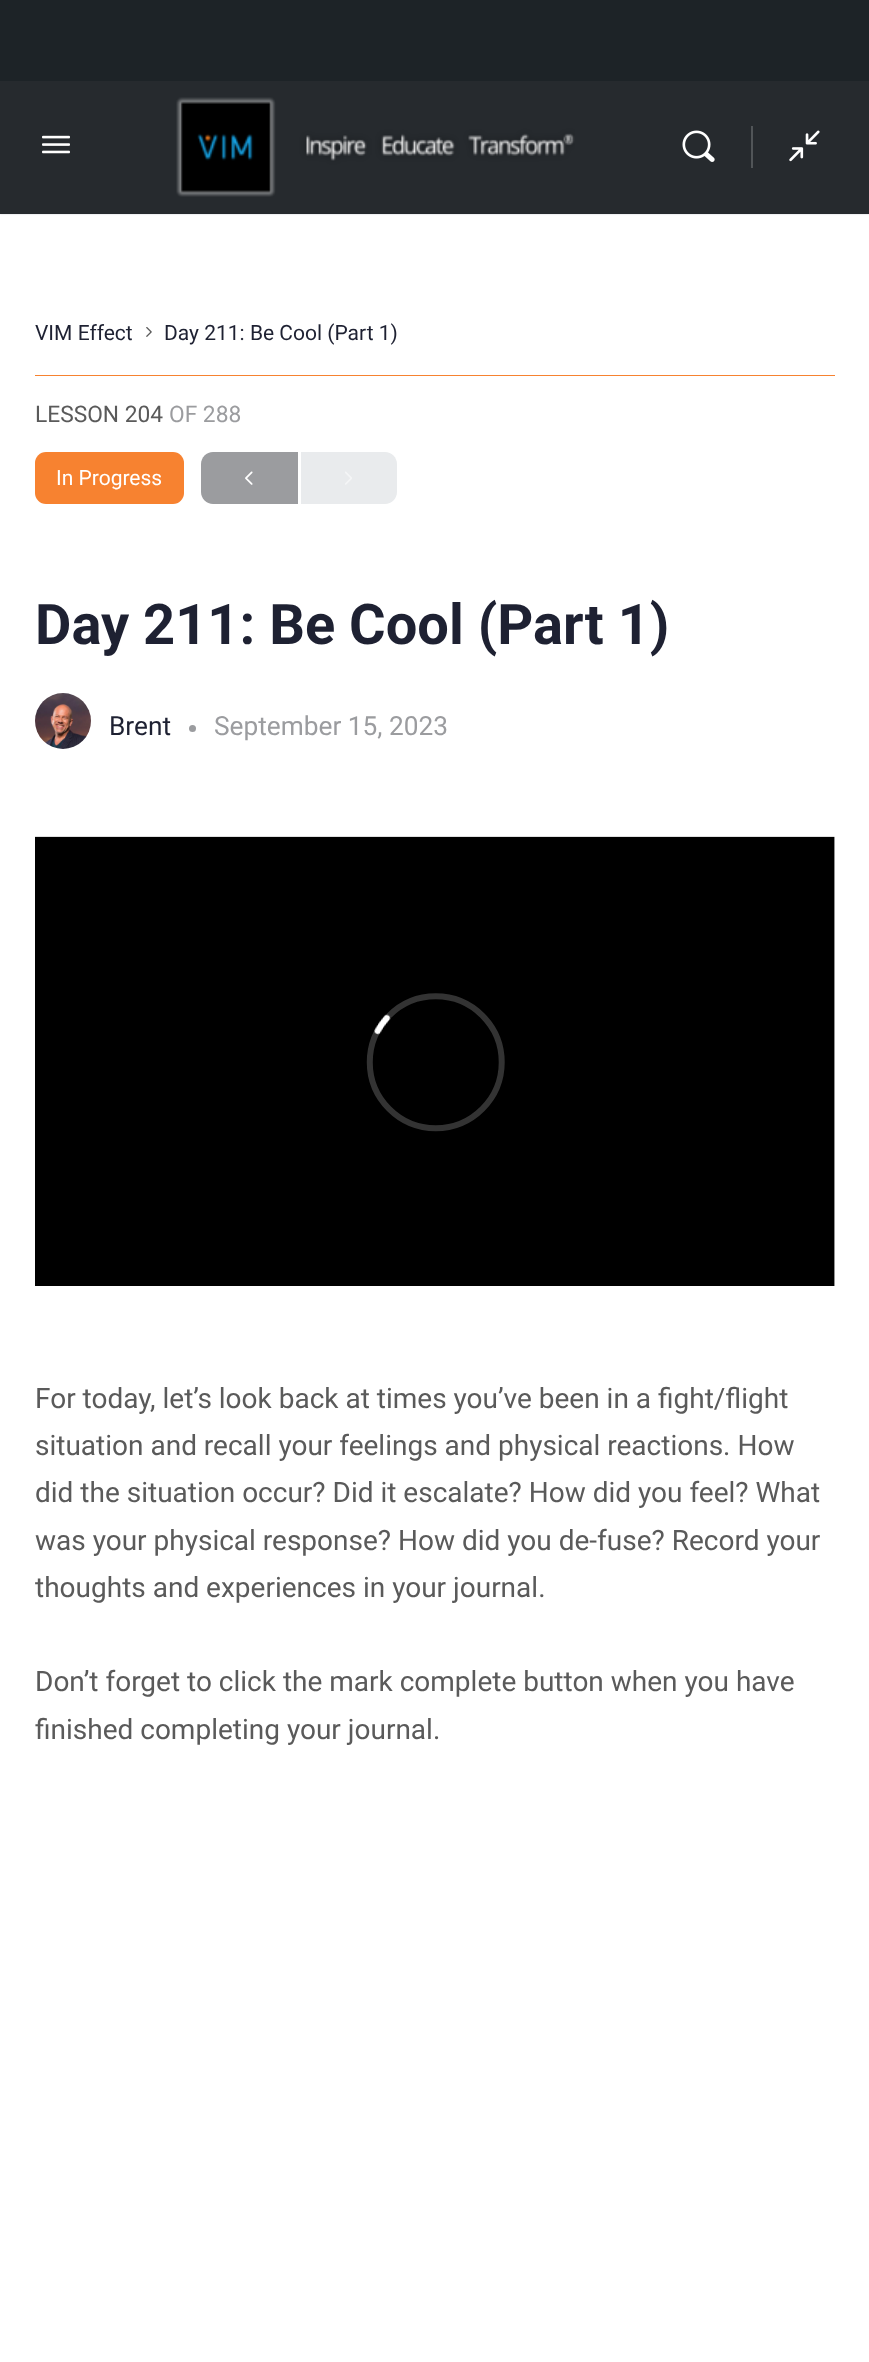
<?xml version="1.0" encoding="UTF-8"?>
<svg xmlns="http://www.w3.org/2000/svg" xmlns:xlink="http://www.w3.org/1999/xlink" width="869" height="2362">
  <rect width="100%" height="100%" fill="#ffffff" />
  <rect y="81" width="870" height="133" fill="#41476c" fill-opacity="0.15" filter="blur(1px)" />
  <rect width="869" height="81" fill="#1d2327" />
  <path d="M 0 214 v 1 h 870 v -133 v 132 z" fill="#8b8d9d" fill-opacity="0.05" />
  <rect y="81" width="869" height="133" fill="#262a2e" />
  <image x="42" y="135" width="28" height="19" xlink:href="image1.png" />
  <image x="176" y="97" width="399" height="100" xlink:href="image2.png" />
  <image x="682" y="130" width="33" height="32" xlink:href="image3.png" />
  <rect x="751" y="126" width="2" height="42" fill="#515558" />
  <image x="789" y="130" width="31" height="32" xlink:href="image4.png" />
  <rect x="35" y="375" width="800" height="1" fill="#f78230" />
  <image x="146" y="327" width="6" height="10" xlink:href="image5.png" />
  <rect x="35" y="452" width="149" height="52" rx="11" fill="#f78230" />
  <path d="M 213 452 h 85 v 52 h -85 c -6.5 0 -12 -5.5 -12 -12 v -28 c 0 -6.5 5.5 -12 12 -12 z" fill="#9b9c9f" />
  <image x="245" y="471" width="8" height="14" xlink:href="image6.png" />
  <path d="M 301 452 h 84 c 6.5 0 12 5.5 12 12 v 28 c 0 6.5 -5.5 12 -12 12 h -84 z" fill="#e9ebed" />
  <image x="345" y="471" width="7" height="14" xlink:href="image7.png" />
  <image x="35" y="693" width="56" height="56" xlink:href="image8.png" />
  <circle cx="192.5" cy="728.5" r="3.5" fill="#9b9c9f" />
  <image x="35" y="836" width="800" height="450" xlink:href="image9.png" />
  <text x="35" y="340" style="font-family: Roboto; font-size: 21px; fill: #1e2132">VIM Effect</text>
  <text x="164" y="340" style="font-family: Roboto; font-size: 21px; fill: #1e2132">Day 211: Be Cool (Part 1)</text>
  <text x="35" y="422" style="font-family: Roboto; font-size: 22.75px; fill: #5a5a5a">LESSON 204</text>
  <text x="169" y="422" style="font-family: Roboto; font-size: 22.75px; fill: #9b9c9f">OF 288</text>
  <text x="56" y="485" style="font-family: Roboto; font-size: 21px; fill: #ffffff">In Progress</text>
  <text x="35" y="644" style="font-family: Roboto; font-size: 56px; font-weight: bold; fill: #1e2132">Day 211: Be Cool (Part 1)</text>
  <text x="109" y="735" style="font-family: Roboto; font-size: 26.25px; fill: #1e2132">Brent</text>
  <text x="214" y="735" style="font-family: Roboto; font-size: 26.25px; fill: #9b9c9f">September 15, 2023</text>
  <text x="35" y="1408" style="font-family: Roboto; font-size: 28px; fill: #5a5a5a">For today, let’s look back at times you’ve been in a fight/flight</text>
  <text x="35" y="1455" style="font-family: Roboto; font-size: 28px; fill: #5a5a5a">situation and recall your feelings and physical reactions. How</text>
  <text x="35" y="1502" style="font-family: Roboto; font-size: 28px; fill: #5a5a5a">did the situation occur? Did it escalate? How did you feel? What</text>
  <text x="35" y="1550" style="font-family: Roboto; font-size: 28px; fill: #5a5a5a">was your physical response? How did you de-fuse? Record your</text>
  <text x="35" y="1597" style="font-family: Roboto; font-size: 28px; fill: #5a5a5a">thoughts and experiences in your journal.</text>
  <text x="35" y="1691" style="font-family: Roboto; font-size: 28px; fill: #5a5a5a">Don’t forget to click the mark complete button when you have</text>
  <text x="35" y="1739" style="font-family: Roboto; font-size: 28px; fill: #5a5a5a">finished completing your journal.</text>
</svg>
